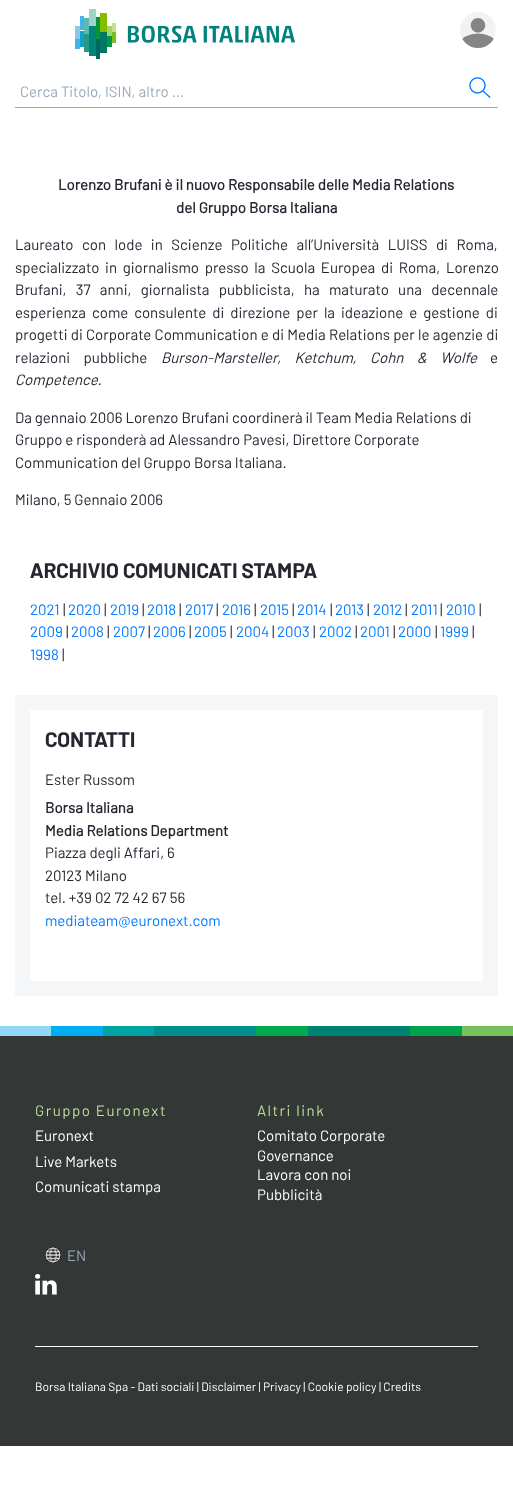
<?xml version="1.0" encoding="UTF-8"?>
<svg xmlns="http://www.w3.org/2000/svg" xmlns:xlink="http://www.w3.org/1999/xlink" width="513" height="1496">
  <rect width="100%" height="100%" fill="#ffffff" />
  <image x="75" y="9" width="220" height="50" xlink:href="image1.png" />
  <image x="460" y="12" width="36" height="36" xlink:href="image2.png" />
  <rect x="15" y="107" width="483" height="1" fill="#98a9bc" />
  <image x="469" y="77" width="22" height="21" xlink:href="image3.png" />
  <rect x="15" y="695" width="483" height="301" fill="#f5f6f7" />
  <rect x="30" y="710" width="453" height="271" fill="#ffffff" />
  <rect y="1026" width="51" height="10" fill="#8fd9f7" />
  <rect x="51" y="1026" width="52" height="10" fill="#00adf0" />
  <rect x="103" y="1026" width="51" height="10" fill="#00a3a3" />
  <rect x="154" y="1026" width="102" height="10" fill="#008f8f" />
  <rect x="256" y="1026" width="52" height="10" fill="#00ab4f" />
  <rect x="308" y="1026" width="102" height="10" fill="#008273" />
  <rect x="410" y="1026" width="52" height="10" fill="#00a34d" />
  <rect x="462" y="1026" width="51" height="10" fill="#75c25c" />
  <rect y="1036" width="513" height="410" fill="#333836" />
  <image x="45" y="1247" width="16" height="16" xlink:href="image4.png" />
  <image x="35" y="1274" width="22" height="21" xlink:href="image5.png" />
  <rect x="35" y="1346" width="443" height="1" fill="#ffffff" />
  <text x="20" y="97" style="font-family: Barlow; font-size: 15px; fill: #98a9bc">Cerca Titolo, ISIN, altro ...</text>
  <text x="58" y="190" style="font-family: Barlow; font-size: 15px; font-weight: bold; fill: #252631">Lorenzo Brufani è il nuovo Responsabile delle Media Relations</text>
  <text x="176" y="213" style="font-family: Barlow; font-size: 15px; font-weight: bold; fill: #252631">del Gruppo Borsa Italiana</text>
  <text x="15" y="250" word-spacing="5.5" style="font-family: Barlow; font-size: 15px; fill: #252631">Laureato con lode in Scienze Politiche all’Università LUISS di Roma,</text>
  <text x="15" y="273" word-spacing="2.75" style="font-family: Barlow; font-size: 15px; fill: #252631">specializzato in giornalismo presso la Scuola Europea di Roma, Lorenzo</text>
  <text x="15" y="295" word-spacing="6.25" style="font-family: Barlow; font-size: 15px; fill: #252631">Brufani, 37 anni, giornalista pubblicista, ha maturato una decennale</text>
  <text x="15" y="318" word-spacing="3" style="font-family: Barlow; font-size: 15px; fill: #252631">esperienza come consulente di direzione per la ideazione e gestione di</text>
  <text x="15" y="340" word-spacing="0.25" style="font-family: Barlow; font-size: 15px; fill: #252631">progetti di Corporate Communication e di Media Relations per le agenzie di</text>
  <text x="15" y="363" word-spacing="10.5" style="font-family: Barlow; font-size: 15px; fill: #252631">relazioni pubbliche</text>
  <text x="161" y="363" word-spacing="10.5" style="font-family: Barlow; font-size: 15px; font-style: italic; fill: #252631">Burson-Marsteller, Ketchum, Cohn &amp; Wolfe</text>
  <text x="490" y="363" style="font-family: Barlow; font-size: 15px; fill: #252631">e</text>
  <text x="15" y="385" style="font-family: Barlow; font-size: 15px; font-style: italic; fill: #252631">Competence.</text>
  <text x="15" y="423" style="font-family: Barlow; font-size: 15px; fill: #252631">Da gennaio 2006 Lorenzo Brufani coordinerà il Team Media Relations di</text>
  <text x="15" y="445" style="font-family: Barlow; font-size: 15px; fill: #252631">Gruppo e risponderà ad Alessandro Pavesi, Direttore Corporate</text>
  <text x="15" y="468" style="font-family: Barlow; font-size: 15px; fill: #252631">Communication del Gruppo Borsa Italiana.</text>
  <text x="15" y="505" style="font-family: Barlow; font-size: 15px; fill: #252631">Milano, 5 Gennaio 2006</text>
  <text x="30" y="578" style="font-family: 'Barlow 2'; font-size: 21px; font-weight: bold; fill: #252631">ARCHIVIO COMUNICATI STAMPA</text>
  <text x="30" y="615" style="font-family: Barlow; font-size: 15px; fill: #007aff">2021</text>
  <text x="63" y="615" style="font-family: Barlow; font-size: 15px; fill: #252631">|</text>
  <text x="68" y="615" style="font-family: Barlow; font-size: 15px; fill: #007aff">2020</text>
  <text x="104" y="615" style="font-family: Barlow; font-size: 15px; fill: #252631">|</text>
  <text x="110" y="615" style="font-family: Barlow; font-size: 15px; fill: #007aff">2019</text>
  <text x="142" y="615" style="font-family: Barlow; font-size: 15px; fill: #252631">|</text>
  <text x="147" y="615" style="font-family: Barlow; font-size: 15px; fill: #007aff">2018</text>
  <text x="179" y="615" style="font-family: Barlow; font-size: 15px; fill: #252631">|</text>
  <text x="185" y="615" style="font-family: Barlow; font-size: 15px; fill: #007aff">2017</text>
  <text x="216" y="615" style="font-family: Barlow; font-size: 15px; fill: #252631">|</text>
  <text x="222" y="615" style="font-family: Barlow; font-size: 15px; fill: #007aff">2016</text>
  <text x="254" y="615" style="font-family: Barlow; font-size: 15px; fill: #252631">|</text>
  <text x="260" y="615" style="font-family: Barlow; font-size: 15px; fill: #007aff">2015</text>
  <text x="292" y="615" style="font-family: Barlow; font-size: 15px; fill: #252631">|</text>
  <text x="297" y="615" style="font-family: Barlow; font-size: 15px; fill: #007aff">2014</text>
  <text x="330" y="615" style="font-family: Barlow; font-size: 15px; fill: #252631">|</text>
  <text x="335" y="615" style="font-family: Barlow; font-size: 15px; fill: #007aff">2013</text>
  <text x="367" y="615" style="font-family: Barlow; font-size: 15px; fill: #252631">|</text>
  <text x="373" y="615" style="font-family: Barlow; font-size: 15px; fill: #007aff">2012</text>
  <text x="405" y="615" style="font-family: Barlow; font-size: 15px; fill: #252631">|</text>
  <text x="411" y="615" style="font-family: Barlow; font-size: 15px; fill: #007aff">2011</text>
  <text x="440" y="615" style="font-family: Barlow; font-size: 15px; fill: #252631">|</text>
  <text x="446" y="615" style="font-family: Barlow; font-size: 15px; fill: #007aff">2010</text>
  <text x="479" y="615" style="font-family: Barlow; font-size: 15px; fill: #252631">|</text>
  <text x="30" y="637" style="font-family: Barlow; font-size: 15px; fill: #007aff">2009</text>
  <text x="66" y="637" style="font-family: Barlow; font-size: 15px; fill: #252631">|</text>
  <text x="71" y="637" style="font-family: Barlow; font-size: 15px; fill: #007aff">2008</text>
  <text x="107" y="637" style="font-family: Barlow; font-size: 15px; fill: #252631">|</text>
  <text x="113" y="637" style="font-family: Barlow; font-size: 15px; fill: #007aff">2007</text>
  <text x="148" y="637" style="font-family: Barlow; font-size: 15px; fill: #252631">|</text>
  <text x="153" y="637" style="font-family: Barlow; font-size: 15px; fill: #007aff">2006</text>
  <text x="189" y="637" style="font-family: Barlow; font-size: 15px; fill: #252631">|</text>
  <text x="194" y="637" style="font-family: Barlow; font-size: 15px; fill: #007aff">2005</text>
  <text x="230" y="637" style="font-family: Barlow; font-size: 15px; fill: #252631">|</text>
  <text x="236" y="637" style="font-family: Barlow; font-size: 15px; fill: #007aff">2004</text>
  <text x="272" y="637" style="font-family: Barlow; font-size: 15px; fill: #252631">|</text>
  <text x="277" y="637" style="font-family: Barlow; font-size: 15px; fill: #007aff">2003</text>
  <text x="313" y="637" style="font-family: Barlow; font-size: 15px; fill: #252631">|</text>
  <text x="319" y="637" style="font-family: Barlow; font-size: 15px; fill: #007aff">2002</text>
  <text x="355" y="637" style="font-family: Barlow; font-size: 15px; fill: #252631">|</text>
  <text x="360" y="637" style="font-family: Barlow; font-size: 15px; fill: #007aff">2001</text>
  <text x="393" y="637" style="font-family: Barlow; font-size: 15px; fill: #252631">|</text>
  <text x="398" y="637" style="font-family: Barlow; font-size: 15px; fill: #007aff">2000</text>
  <text x="435" y="637" style="font-family: Barlow; font-size: 15px; fill: #252631">|</text>
  <text x="440" y="637" style="font-family: Barlow; font-size: 15px; fill: #007aff">1999</text>
  <text x="472" y="637" style="font-family: Barlow; font-size: 15px; fill: #252631">|</text>
  <text x="30" y="660" style="font-family: Barlow; font-size: 15px; fill: #007aff">1998</text>
  <text x="62" y="660" style="font-family: Barlow; font-size: 15px; fill: #252631">|</text>
  <text x="45" y="747" style="font-family: 'Barlow 2'; font-size: 21px; font-weight: bold; fill: #252631">CONTATTI</text>
  <text x="45" y="785" style="font-family: Barlow; font-size: 15px; fill: #252631">Ester Russom</text>
  <text x="45" y="813" style="font-family: Barlow; font-size: 15px; font-weight: bold; fill: #252631">Borsa Italiana</text>
  <text x="45" y="836" style="font-family: Barlow; font-size: 15px; font-weight: bold; fill: #252631">Media Relations Department</text>
  <text x="45" y="858" style="font-family: Barlow; font-size: 15px; fill: #252631">Piazza degli Affari, 6</text>
  <text x="45" y="881" style="font-family: Barlow; font-size: 15px; fill: #252631">20123 Milano</text>
  <text x="45" y="903" style="font-family: Barlow; font-size: 15px; fill: #252631">tel. +39 02 72 42 67 56</text>
  <text x="45" y="926" style="font-family: Barlow; font-size: 15px; fill: #007aff">mediateam@euronext.com</text>
  <text x="35" y="1116" style="font-family: Barlow; font-size: 15px; letter-spacing: 1.5px; fill: #c1de9b">Gruppo Euronext</text>
  <text x="35" y="1141" style="font-family: Barlow; font-size: 15px; fill: #ffffff">Euronext</text>
  <text x="35" y="1167" style="font-family: Barlow; font-size: 15px; fill: #ffffff">Live Markets</text>
  <text x="35" y="1192" style="font-family: Barlow; font-size: 15px; fill: #ffffff">Comunicati stampa</text>
  <text x="257" y="1116" style="font-family: Barlow; font-size: 15px; letter-spacing: 1.5px; fill: #c1de9b">Altri link</text>
  <text x="257" y="1141" style="font-family: Barlow; font-size: 15px; fill: #ffffff">Comitato Corporate</text>
  <text x="257" y="1161" style="font-family: Barlow; font-size: 15px; fill: #ffffff">Governance</text>
  <text x="257" y="1180" style="font-family: Barlow; font-size: 15px; fill: #ffffff">Lavora con noi</text>
  <text x="257" y="1200" style="font-family: Barlow; font-size: 15px; fill: #ffffff">Pubblicità</text>
  <text x="67" y="1261" style="font-family: Barlow; font-size: 15px; fill: #98a9bc">EN</text>
  <text x="35" y="1391" style="font-family: Barlow; font-size: 12px; fill: #ffffff">Borsa Italiana Spa - Dati sociali | Disclaimer | Privacy | Cookie policy | Credits</text>
</svg>
